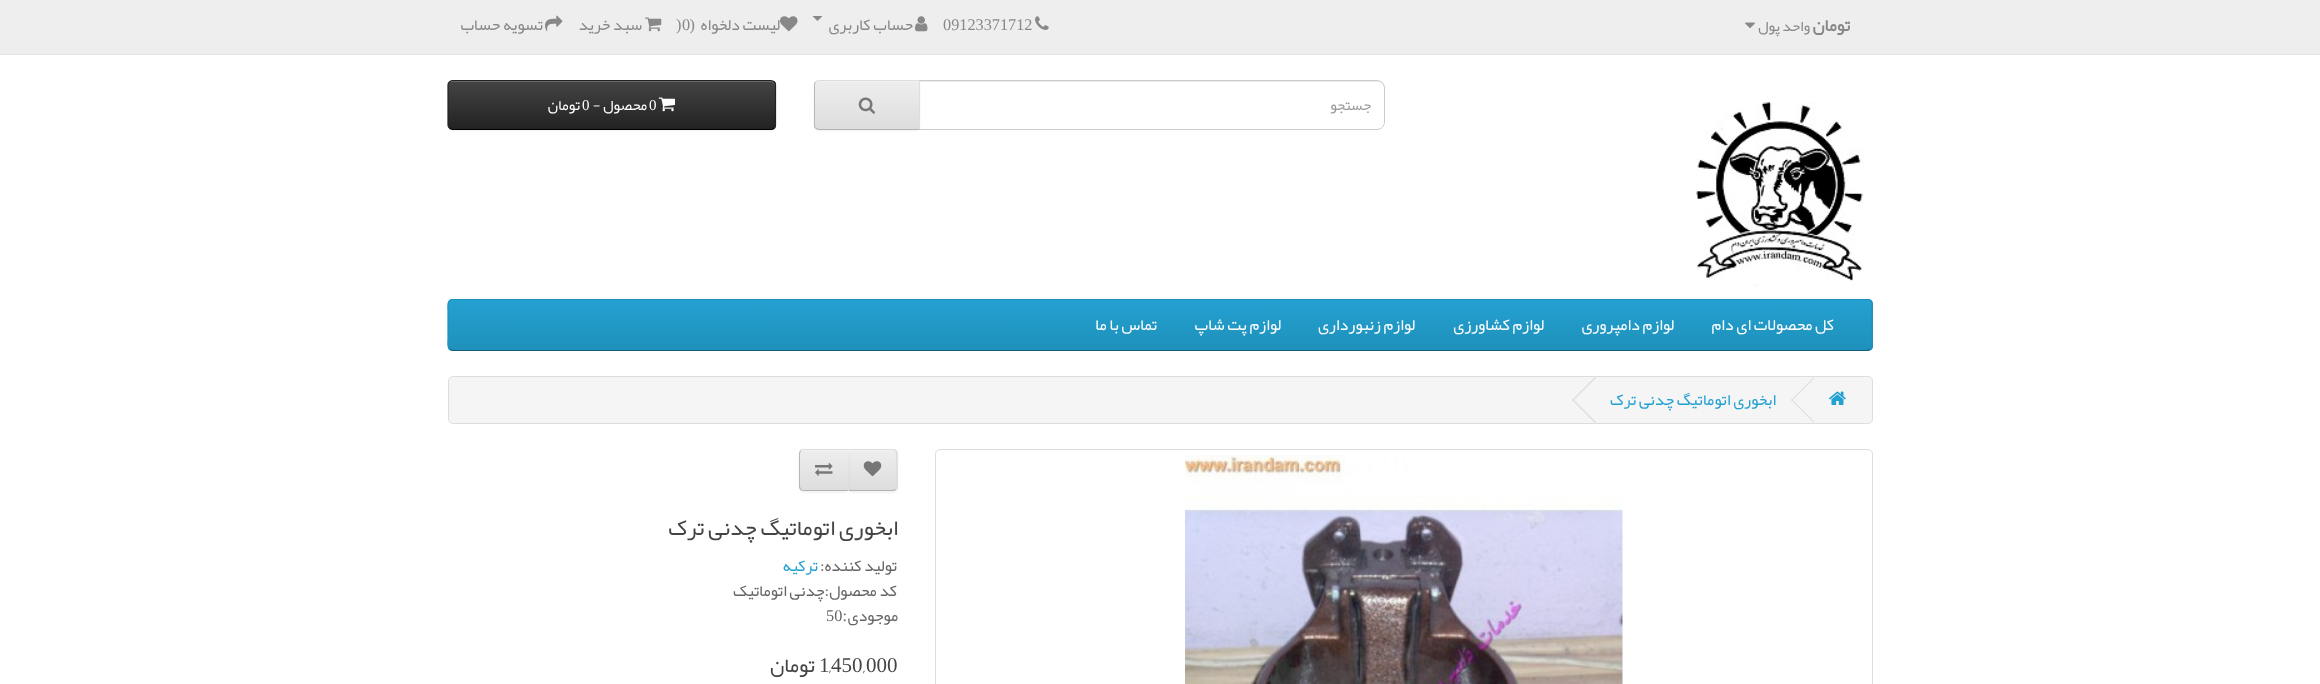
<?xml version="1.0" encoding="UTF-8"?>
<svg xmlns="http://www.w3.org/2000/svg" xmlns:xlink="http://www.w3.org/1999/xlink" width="2320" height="684">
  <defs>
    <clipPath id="clip1"><path d="M 819 80 h 101 v 50 h -101 c -3 0 -5 -2 -5 -5 v -40 c 0 -3 2 -5 5 -5 z" /></clipPath>
    <linearGradient id="g1" gradientUnits="userSpaceOnUse" x1="867" y1="81" x2="867" y2="129"><stop offset="0" stop-color="#eeeeee" /><stop offset="1" stop-color="#dddddd" /></linearGradient>
    <clipPath id="clip2"><rect x="448" y="80" width="328" height="50" rx="5" /></clipPath>
    <linearGradient id="g2" gradientUnits="userSpaceOnUse" x1="612" y1="81" x2="612" y2="129"><stop offset="0" stop-color="#444444" /><stop offset="1" stop-color="#222222" /></linearGradient>
    <clipPath id="clip3"><rect x="448" y="299" width="1425" height="52" rx="5" /></clipPath>
    <linearGradient id="g3" gradientUnits="userSpaceOnUse" x1="1160" y1="300" x2="1160" y2="350"><stop offset="0" stop-color="#23a1d1" /><stop offset="1" stop-color="#1f90bb" /></linearGradient>
    <clipPath id="clip4"><path d="M 848 449 h 45 c 3 0 5 2 5 5 v 32 c 0 3 -2 5 -5 5 h -45 z" /></clipPath>
    <linearGradient id="g4" gradientUnits="userSpaceOnUse" x1="873" y1="450" x2="873" y2="490"><stop offset="0" stop-color="#eeeeee" /><stop offset="1" stop-color="#dddddd" /></linearGradient>
    <clipPath id="clip5"><path d="M 804 449 h 45 v 42 h -45 c -3 0 -5 -2 -5 -5 v -32 c 0 -3 2 -5 5 -5 z" /></clipPath>
    <linearGradient id="g5" gradientUnits="userSpaceOnUse" x1="824" y1="450" x2="824" y2="490"><stop offset="0" stop-color="#eeeeee" /><stop offset="1" stop-color="#dddddd" /></linearGradient>
  </defs>
  <rect width="100%" height="100%" fill="#ffffff" />
  <rect width="2320" height="54" fill="#eeeeee" />
  <rect y="54" width="2320" height="1" fill="#e2e2e2" />
  <image x="1745" y="22" width="10" height="6" xlink:href="image1.png" />
  <image x="1035" y="16" width="14" height="14" xlink:href="image2.png" />
  <image x="915" y="16" width="13" height="16" xlink:href="image3.png" />
  <path d="M 812.5 16 h 10 l -5 5 z" fill="#888888" />
  <image x="780" y="16" width="18" height="16" xlink:href="image4.png" />
  <image x="645" y="17" width="17" height="15" xlink:href="image5.png" />
  <image x="545" y="15" width="18" height="17" xlink:href="image6.png" />
  <image x="1696" y="102" width="168" height="185" xlink:href="image7.png" />
  <path d="M 920 82 h 458 c 3 0 6 3 6 7 c 0 -4 -1 -8 -6 -8 h -458 z" fill="#ececec" />
  <path d="M 919.5 80.5 h 457.5 c 4 0 7.5 3.5 7.5 7.5 v 34 c 0 4 -3.5 7.5 -7.5 7.5 h -457.5 z" fill="none" stroke="#cccccc" />
  <rect x="814" y="81" width="106" height="50" rx="5" fill="#000000" fill-opacity="0.05" filter="blur(1px)" />
  <g clip-path="url(#clip1)">
    <rect x="814" y="81" width="105" height="48" fill="url(#g1)" />
  </g>
  <path d="M 819 82 h 100 v -1 h -100 c -2 0 -4 2 -4 4 v 1 c 0 -2 2 -4 4 -4 z" fill="#f1f1f1" />
  <path d="M 819 80 c -2 0 -3 1 -4 2 h 1 l 3 -1 h 100 l 1 -1 z" fill="#dddddd" />
  <path d="M 920 80 l -1 1 v 48 l 1 1 z" fill="#dddddd" />
  <path d="M 920 130 l -1 -1 h -100 l -3 -1 h -1 c 1 1 2 2 4 2 z" fill="#b3b3b3" />
  <path d="M 815 82 c -1 0 -1 2 -1 3 v 40 c 0 1 0 3 1 3 h 1 c -1 -1 -1 -2 -1 -3 v -40 c 0 -1 0 -2 1 -3 z" fill="#b7b7b7" />
  <image x="858" y="97" width="17" height="17" xlink:href="image8.png" />
  <rect x="448" y="81" width="328" height="50" rx="5" fill="#000000" fill-opacity="0.05" filter="blur(1px)" />
  <g clip-path="url(#clip2)">
    <rect x="448" y="81" width="328" height="48" fill="url(#g2)" />
  </g>
  <path d="M 452 82 h 319 c 2 0 4 2 4 4 v -1 c 0 -2 -2 -4 -4 -4 h -318 c -2 0 -4 2 -4 4 v 1 c 0 -2 1 -4 3 -4 z" fill="#696969" />
  <path d="M 774.5 128 c -1 1 -2 1.5 -3.5 1.5 h -318.5 c -1 0 -2.5 -0.5 -3 -1.5" fill="none" stroke="#000000" stroke-width="1.2" />
  <path d="M 449.5 128 c -1 -0.5 -1.5 -2 -1.5 -3 v -40 c 0 -1 0.5 -2.5 1.5 -3 c 0.5 -1 2 -1.5 3 -1.5 h 318.5 c 1.5 0 2.5 0.5 3.5 1.5 c 0.5 0.5 1 2 1 3 v 40 c 0 1 -0.5 2.5 -1 3" fill="none" stroke="#222222" stroke-width="1.2" />
  <image x="658" y="97" width="17" height="15" xlink:href="image9.png" />
  <rect x="448" y="299" width="1425" height="52" rx="5" fill="#229ac8" />
  <g clip-path="url(#clip3)">
    <rect x="448" y="300" width="1425" height="50" fill="url(#g3)" />
  </g>
  <path d="M 1870.5 349.5 l -3 1 h -1415 l -3 -1" fill="none" stroke="#145e7a" stroke-width="1.2" />
  <path d="M 449.5 349.5 c -2.5 -2.5 -1.5 -8 -1.5 -10.5 v -28 c 0 -3.5 -1.5 -11.5 4.5 -11.5 h 1415 c 6 0 4.5 8 4.5 11.5 v 28 c 0 2.5 1 8 -1.5 10.5" fill="none" stroke="#1f90bb" stroke-width="1.2" />
  <rect x="448.5" y="376.5" width="1424" height="47" rx="4.5" fill="#f5f5f5" stroke="#dddddd" />
  <image x="1829" y="391" width="17" height="14" xlink:href="image10.png" />
  <path d="M 1791.5 399 l 23 23 l -0.5 1 l -23 -23 z" fill="#dddddd" />
  <path d="M 1814 377 l 0.5 1 l -23 23 l -0.5 -1 z" fill="#dddddd" />
  <path d="M 1573 399 l 23 23 l -1 1 l -23 -23 z" fill="#dddddd" />
  <path d="M 1595 377 l 1 1 l -23 23 l -1 -1 z" fill="#dddddd" />
  <rect x="935.5" y="449.5" width="937" height="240" rx="4.5" fill="none" stroke="#dddddd" />
  <image x="1185" y="455" width="438" height="229" xlink:href="image11.png" />
  <rect x="848" y="450" width="50" height="43" rx="5" fill="#000000" fill-opacity="0.05" filter="blur(1px)" />
  <path d="M 848 449 h 45 c 3 0 5 2 5 5 v 32 c 0 3 -2 5 -5 5 h -45 z" fill="#e7e7e7" />
  <g clip-path="url(#clip4)">
    <rect x="849" y="450" width="49" height="40" fill="url(#g4)" />
  </g>
  <path d="M 849 451 h 43 c 3 0 4 2 4 4 v -1 c 0 -2 -2 -4 -4 -4 h -43 z" fill="#f1f1f1" />
  <path d="M 848 449 l 1 1 h 43 c 1 0 2 0 3 1 l 1 -1 l -4 -1 z" fill="#dddddd" />
  <path d="M 896 450.5 l 1.5 1.5 v 36 l -1.5 1.5 l -1 -0.5 c 0.5 -1 1 -2 1 -3 v -32 c 0 -1 -0.5 -2 -1 -3 z" fill="#dddddd" />
  <path d="M 896 490 c -1 1 -3 1 -4 1 h -44 l 1 -1 h 43 c 1 0 2 0 3 -1 z" fill="#b3b3b3" />
  <image x="863" y="461" width="19" height="16" xlink:href="image12.png" />
  <rect x="799" y="450" width="50" height="43" rx="5" fill="#000000" fill-opacity="0.05" filter="blur(1px)" />
  <path d="M 804 449 h 45 v 42 h -45 c -3 0 -5 -2 -5 -5 v -32 c 0 -3 2 -5 5 -5 z" fill="#e7e7e7" />
  <g clip-path="url(#clip5)">
    <rect x="799" y="450" width="50" height="40" fill="url(#g5)" />
  </g>
  <path d="M 804 451 h 44 v -1 h -44 c -2 0 -4 2 -4 4 v 1 c 0 -2 2 -4 4 -4 z" fill="#f1f1f1" />
  <path d="M 804 449 c -2 0 -3 1 -4 1 l 1 1 c 1 -1 2 -1 3 -1 h 44 v -1 z m 45 42 l -1 -1 v -40 v -1 z" fill="#dddddd" />
  <path d="M 848 491 h -44 c -2 0 -3 -1 -4 -1 l 1 -1 c 1 1 2 1 3 1 h 44 z" fill="#b3b3b3" />
  <path d="M 800.5 450.5 c -1 0.5 -1.5 2 -1.5 3.5 v 32 c 0 1.5 0.5 3 1.5 3.5 l 0.5 -0.5 c -0.5 -1 -1 -2 -1 -3 v -32 c 0 -1 0.5 -2 1 -3 z" fill="#b7b7b7" />
  <image x="815" y="462" width="18" height="14" xlink:href="image13.png" />
  <text x="1850" y="31" style="font-family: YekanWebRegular; font-size: 17.5px; font-weight: bold; direction: rtl; fill: #888888">تومان</text>
  <text x="1810" y="31" style="font-family: YekanWebRegular; font-size: 15px; direction: rtl; fill: #888888">واحد پول</text>
  <text x="943" y="30" style="font-family: Liberation Serif; font-size: 16.25px; fill: #888888">09123371712</text>
  <text x="913" y="30" style="font-family: YekanWebRegular; font-size: 16.25px; direction: rtl; fill: #888888">حساب کاربری</text>
  <text x="780" y="30" style="font-family: YekanWebRegular; font-size: 16.25px; direction: rtl; fill: #888888">لیست دلخواه</text>
  <text x="695" y="30" style="font-family: Liberation Serif; font-size: 16.25px; direction: rtl; fill: #888888">(</text>
  <text x="682" y="30" style="font-family: Liberation Serif; font-size: 16.25px; fill: #888888">0</text>
  <text x="676" y="30" style="font-family: Liberation Serif; font-size: 16.25px; fill: #888888">)</text>
  <text x="642" y="30" style="font-family: YekanWebRegular; font-size: 16.25px; direction: rtl; fill: #888888">سبد خرید</text>
  <text x="543" y="30" style="font-family: YekanWebRegular; font-size: 16.25px; direction: rtl; fill: #888888">تسویه حساب</text>
  <text x="1371" y="110" style="font-family: YekanWebRegular; font-size: 15px; direction: rtl; fill: #999999">جستجو</text>
  <text x="649" y="110" style="font-family: Liberation Serif; font-size: 15px; fill: #ffffff">0</text>
  <text x="647" y="110" style="font-family: YekanWebRegular; font-size: 15px; direction: rtl; fill: #ffffff">محصول -</text>
  <text x="582" y="110" style="font-family: Liberation Serif; font-size: 15px; fill: #ffffff">0</text>
  <text x="580" y="110" style="font-family: YekanWebRegular; font-size: 15px; direction: rtl; fill: #ffffff">تومان</text>
  <text x="1834" y="330" style="font-family: YekanWebRegular; font-size: 16.25px; direction: rtl; fill: #ffffff">کل محصولات ای دام</text>
  <text x="1674" y="330" style="font-family: YekanWebRegular; font-size: 16.25px; direction: rtl; fill: #ffffff">لوازم دامپروری</text>
  <text x="1544" y="330" style="font-family: YekanWebRegular; font-size: 16.25px; direction: rtl; fill: #ffffff">لوازم کشاورزی</text>
  <text x="1415" y="330" style="font-family: YekanWebRegular; font-size: 16.25px; direction: rtl; fill: #ffffff">لوازم زنبورداری</text>
  <text x="1281" y="330" style="font-family: YekanWebRegular; font-size: 16.25px; direction: rtl; fill: #ffffff">لوازم پت شاپ</text>
  <text x="1157" y="330" style="font-family: YekanWebRegular; font-size: 16.25px; direction: rtl; fill: #ffffff">تماس با ما</text>
  <text x="1776" y="405" style="font-family: YekanWebRegular; font-size: 16.25px; direction: rtl; fill: #23a1d1">ابخوری اتوماتیگ چدنی ترک</text>
  <text x="898" y="535" style="font-family: YekanWebRegular; font-size: 22.5px; direction: rtl; fill: #444444">ابخوری اتوماتیگ چدنی ترک</text>
  <text x="897" y="571" style="font-family: YekanWebRegular; font-size: 16.25px; direction: rtl; fill: #666666">تولید کننده:</text>
  <text x="818" y="571" style="font-family: YekanWebRegular; font-size: 16.25px; direction: rtl; fill: #23a1d1">ترکیه</text>
  <text x="897" y="596" style="font-family: YekanWebRegular; font-size: 16.25px; direction: rtl; fill: #666666">کد محصول:چدنی اتوماتیک</text>
  <text x="898" y="621" style="font-family: YekanWebRegular; font-size: 16.25px; direction: rtl; fill: #666666">موجودی</text>
  <text x="847" y="621" style="font-family: Liberation Serif; font-size: 16.25px; direction: rtl; fill: #666666">:</text>
  <text x="826" y="621" style="font-family: Liberation Serif; font-size: 16.25px; fill: #666666">50</text>
  <text x="866" y="672" style="font-family: Liberation Serif; font-size: 21px; fill: #444444">000</text>
  <text x="863" y="672" style="font-family: YekanWebRegular; font-size: 21px; fill: #444444">,</text>
  <text x="829" y="672" style="font-family: YekanWebRegular; font-size: 21px; fill: #444444">,</text>
  <text x="831" y="672" style="font-family: Liberation Serif; font-size: 21px; fill: #444444">450</text>
  <text x="819" y="672" style="font-family: Liberation Serif; font-size: 21px; fill: #444444">1</text>
  <text x="815" y="672" style="font-family: YekanWebRegular; font-size: 21px; direction: rtl; fill: #444444">تومان</text>
</svg>
